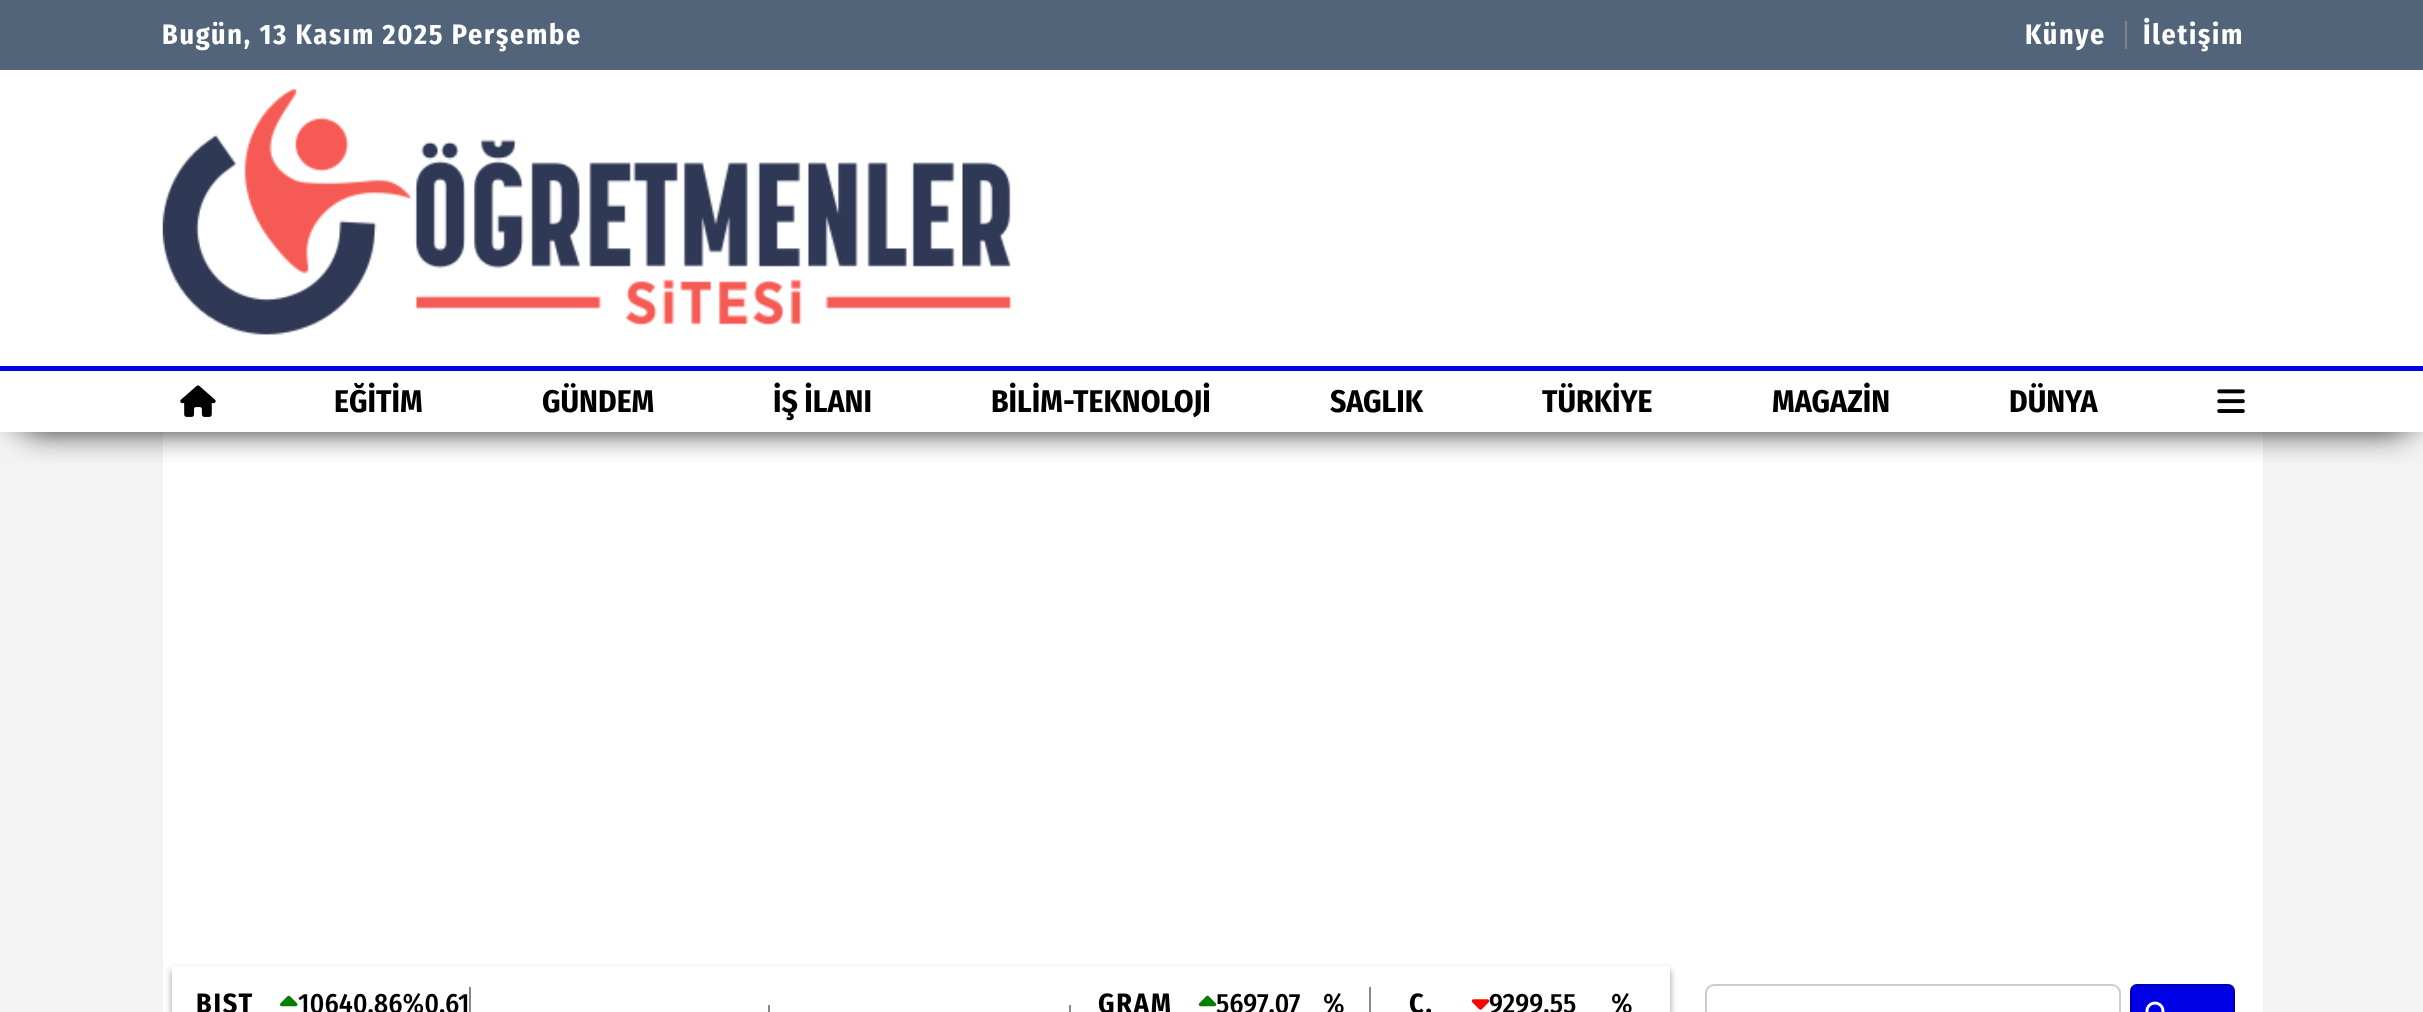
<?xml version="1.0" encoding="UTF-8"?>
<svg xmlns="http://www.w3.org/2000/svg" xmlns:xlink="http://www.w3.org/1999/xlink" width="2423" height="1012">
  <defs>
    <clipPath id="clip1"><rect x="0" y="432" width="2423" height="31" /></clipPath>
  </defs>
  <rect width="100%" height="100%" fill="#f3f3f3" />
  <rect x="163" y="432" width="2100" height="580" fill="#ffffff" />
  <rect y="4" width="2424" height="432" fill="#cccccc" fill-opacity="0.25" filter="blur(3.5px)" />
  <rect y="70" width="2423" height="362" fill="#ffffff" />
  <rect width="2423" height="70" fill="#526479" />
  <rect x="2125" y="21" width="2" height="28" fill="#848484" />
  <image x="162" y="88" width="850" height="247" xlink:href="image1.png" />
  <g clip-path="url(#clip1)">
    <rect x="25" y="404" width="2381" height="25" fill="#000000" filter="blur(16.5px)" />
  </g>
  <rect y="366" width="2423" height="5" fill="#0000e5" />
  <image x="180" y="385" width="36" height="32" xlink:href="image2.png" />
  <image x="2217" y="389" width="28" height="24" xlink:href="image3.png" />
  <rect x="172" y="970" width="1498" height="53" fill="#000000" fill-opacity="0.4" filter="blur(3.5px)" />
  <rect x="172" y="966" width="1498" height="46" fill="#ffffff" />
  <rect x="469" y="987" width="2" height="25" fill="#888888" />
  <image x="280" y="995" width="18" height="12" xlink:href="image4.png" />
  <rect x="768" y="1005" width="2" height="7" fill="#888888" />
  <rect x="1069" y="1005" width="2" height="7" fill="#888888" />
  <rect x="1369" y="987" width="2" height="25" fill="#888888" />
  <image x="1198" y="995" width="19" height="12" xlink:href="image5.png" />
  <image x="1471" y="999" width="19" height="11" xlink:href="image6.png" />
  <rect x="1706" y="985" width="414" height="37" rx="8" fill="none" stroke="#cccccc" stroke-width="2" />
  <rect x="2130" y="984" width="105" height="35" rx="7" fill="#0000e5" />
  <rect x="2131" y="985" width="103" height="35" rx="6" fill="none" stroke="#000000" stroke-opacity="0.2" stroke-width="2" />
  <image x="2145" y="1001" width="20" height="11" xlink:href="image7.png" />
  <text x="162" y="44" style="font-family: Fira Sans Condensed; font-size: 28px; font-weight: bold; letter-spacing: 1.75px; fill: #ffffff">Bugün, 13 Kasım 2025 Perşembe</text>
  <text x="2025" y="44" style="font-family: Fira Sans Condensed; font-size: 28px; font-weight: bold; letter-spacing: 1.75px; fill: #ffffff">Künye</text>
  <text x="2143" y="44" style="font-family: Fira Sans Condensed; font-size: 28px; font-weight: bold; letter-spacing: 1.75px; fill: #ffffff">İletişim</text>
  <text x="334" y="412" style="font-family: Fira Sans Condensed; font-size: 31.5px; font-weight: bold; fill: #000000">EĞİTİM</text>
  <text x="542" y="412" style="font-family: Fira Sans Condensed; font-size: 31.5px; font-weight: bold; fill: #000000">GÜNDEM</text>
  <text x="773" y="412" style="font-family: Fira Sans Condensed; font-size: 31.5px; font-weight: bold; fill: #000000">İŞ İLANI</text>
  <text x="991" y="412" style="font-family: Fira Sans Condensed; font-size: 31.5px; font-weight: bold; fill: #000000">BİLİM-TEKNOLOJİ</text>
  <text x="1330" y="412" style="font-family: Fira Sans Condensed; font-size: 31.5px; font-weight: bold; fill: #000000">SAGLIK</text>
  <text x="1542" y="412" style="font-family: Fira Sans Condensed; font-size: 31.5px; font-weight: bold; fill: #000000">TÜRKİYE</text>
  <text x="1772" y="412" style="font-family: Fira Sans Condensed; font-size: 31.5px; font-weight: bold; fill: #000000">MAGAZİN</text>
  <text x="2009" y="412" style="font-family: Fira Sans Condensed; font-size: 31.5px; font-weight: bold; fill: #000000">DÜNYA</text>
  <text x="196" y="1013" style="font-family: Fira Sans Condensed; font-size: 28px; font-weight: bold; letter-spacing: 1.75px; fill: #000000">BIST</text>
  <text x="298" y="1013" style="font-family: Fira Sans Condensed; font-size: 28px; font-weight: 500; fill: #000000">10640,86%0,61</text>
  <text x="1098" y="1013" style="font-family: Fira Sans Condensed; font-size: 28px; font-weight: bold; letter-spacing: 1.75px; fill: #000000">GRAM</text>
  <text x="1216" y="1013" style="font-family: Fira Sans Condensed; font-size: 28px; font-weight: 500; fill: #000000">5697,07</text>
  <text x="1323" y="1013" style="font-family: Fira Sans Condensed; font-size: 28px; font-weight: 500; letter-spacing: 1.75px; fill: #000000">%</text>
  <text x="1409" y="1013" style="font-family: Fira Sans Condensed; font-size: 28px; font-weight: bold; letter-spacing: 1.75px; fill: #000000">Ç.</text>
  <text x="1489" y="1013" style="font-family: Fira Sans Condensed; font-size: 28px; font-weight: 500; fill: #000000">9299,55</text>
  <text x="1611" y="1013" style="font-family: Fira Sans Condensed; font-size: 28px; font-weight: 500; letter-spacing: 1.75px; fill: #000000">%</text>
</svg>
